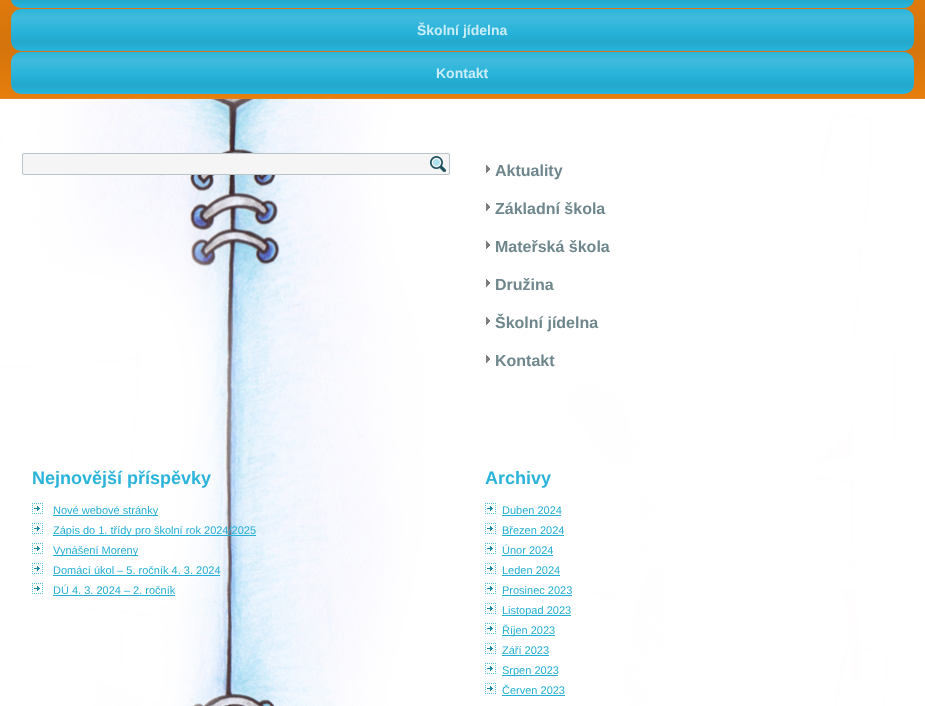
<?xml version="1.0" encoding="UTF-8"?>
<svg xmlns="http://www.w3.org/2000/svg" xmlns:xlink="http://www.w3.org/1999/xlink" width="925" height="706">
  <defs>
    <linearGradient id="g1" gradientUnits="userSpaceOnUse" x1="463" y1="-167" x2="463" y2="99"><stop offset="0" stop-color="#e77e0d" /><stop offset="0.08" stop-color="#f1830e" /><stop offset="0.2" stop-color="#f28b1c" /><stop offset="0.38" stop-color="#f1830e" /><stop offset="0.5" stop-color="#e77e0d" /><stop offset="0.8" stop-color="#d4740c" /><stop offset="1" stop-color="#e77e0d" /></linearGradient>
    <linearGradient id="g2" gradientUnits="userSpaceOnUse" x1="463" y1="-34" x2="463" y2="8"><stop offset="0" stop-color="#2bb4da" /><stop offset="0.2" stop-color="#40bbdd" /><stop offset="0.5" stop-color="#2bb4da" /><stop offset="0.57" stop-color="#26b2d9" /><stop offset="0.8" stop-color="#24a7cc" /><stop offset="0.95" stop-color="#26b2d9" /><stop offset="1" stop-color="#2bb4da" /></linearGradient>
    <linearGradient id="g3" gradientUnits="userSpaceOnUse" x1="463" y1="9" x2="463" y2="51"><stop offset="0" stop-color="#2bb4da" /><stop offset="0.2" stop-color="#40bbdd" /><stop offset="0.5" stop-color="#2bb4da" /><stop offset="0.57" stop-color="#26b2d9" /><stop offset="0.8" stop-color="#24a7cc" /><stop offset="0.95" stop-color="#26b2d9" /><stop offset="1" stop-color="#2bb4da" /></linearGradient>
    <linearGradient id="g4" gradientUnits="userSpaceOnUse" x1="463" y1="52" x2="463" y2="94"><stop offset="0" stop-color="#2bb4da" /><stop offset="0.2" stop-color="#40bbdd" /><stop offset="0.5" stop-color="#2bb4da" /><stop offset="0.57" stop-color="#26b2d9" /><stop offset="0.8" stop-color="#24a7cc" /><stop offset="0.95" stop-color="#26b2d9" /><stop offset="1" stop-color="#2bb4da" /></linearGradient>
  </defs>
  <rect width="100%" height="100%" fill="#ffffff" />
  <image x="0" y="99" width="925" height="607" xlink:href="image1.png" />
  <rect width="925" height="98" fill="url(#g1)" />
  <rect y="98" width="925" height="1" fill="#e28520" />
  <rect x="11" y="-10" width="903" height="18" rx="10" fill="url(#g2)" />
  <rect x="11" y="9" width="903" height="42" rx="10" fill="url(#g3)" />
  <rect x="11" y="52" width="903" height="42" rx="10" fill="url(#g4)" />
  <rect x="22.5" y="153.5" width="427" height="21" rx="1.5" fill="#f5f5f5" stroke="#b8c4c7" />
  <image x="430" y="156" width="16" height="16" xlink:href="image2.png" />
  <image x="486" y="165" width="4" height="8" xlink:href="image3.png" />
  <image x="486" y="203" width="4" height="8" xlink:href="image3.png" />
  <image x="486" y="241" width="4" height="8" xlink:href="image3.png" />
  <image x="486" y="279" width="4" height="8" xlink:href="image3.png" />
  <image x="486" y="317" width="4" height="8" xlink:href="image3.png" />
  <image x="486" y="355" width="4" height="8" xlink:href="image3.png" />
  <image x="32" y="503" width="11" height="11" xlink:href="image4.png" />
  <rect x="53" y="515" width="105" height="1" fill="#25afd4" />
  <image x="32" y="523" width="11" height="11" xlink:href="image4.png" />
  <rect x="53" y="535" width="203" height="1" fill="#25afd4" />
  <image x="32" y="543" width="11" height="11" xlink:href="image4.png" />
  <rect x="53" y="555" width="85" height="1" fill="#25afd4" />
  <image x="32" y="563" width="11" height="11" xlink:href="image4.png" />
  <rect x="53" y="575" width="167" height="1" fill="#25afd4" />
  <image x="32" y="583" width="11" height="11" xlink:href="image4.png" />
  <rect x="53" y="595" width="122" height="1" fill="#25afd4" />
  <image x="485" y="503" width="11" height="11" xlink:href="image4.png" />
  <rect x="502" y="515" width="59" height="1" fill="#25afd4" />
  <image x="485" y="523" width="11" height="11" xlink:href="image4.png" />
  <rect x="502" y="535" width="62" height="1" fill="#25afd4" />
  <image x="485" y="543" width="11" height="11" xlink:href="image4.png" />
  <rect x="502" y="555" width="51" height="1" fill="#25afd4" />
  <image x="485" y="563" width="11" height="11" xlink:href="image4.png" />
  <rect x="502" y="575" width="58" height="1" fill="#25afd4" />
  <image x="485" y="583" width="11" height="11" xlink:href="image4.png" />
  <rect x="502" y="595" width="70" height="1" fill="#25afd4" />
  <image x="485" y="603" width="11" height="11" xlink:href="image4.png" />
  <rect x="502" y="615" width="69" height="1" fill="#25afd4" />
  <image x="485" y="623" width="11" height="11" xlink:href="image4.png" />
  <rect x="502" y="635" width="53" height="1" fill="#25afd4" />
  <image x="485" y="643" width="11" height="11" xlink:href="image4.png" />
  <rect x="502" y="655" width="47" height="1" fill="#25afd4" />
  <image x="485" y="663" width="11" height="11" xlink:href="image4.png" />
  <rect x="502" y="675" width="56" height="1" fill="#25afd4" />
  <image x="485" y="683" width="11" height="11" xlink:href="image4.png" />
  <rect x="502" y="695" width="63" height="1" fill="#25afd4" />
  <text x="417" y="35" style="font-family: Liberation Sans; font-size: 14px; font-weight: bold; fill: #cbedf6">Školní jídelna</text>
  <text x="436" y="78" style="font-family: Liberation Sans; font-size: 14px; font-weight: bold; fill: #cbedf6">Kontakt</text>
  <text x="495" y="176" style="font-family: Liberation Sans; font-size: 16px; font-weight: bold; fill: #6e868c">Aktuality</text>
  <text x="495" y="214" style="font-family: Liberation Sans; font-size: 16px; font-weight: bold; fill: #6e868c">Základní škola</text>
  <text x="495" y="252" style="font-family: Liberation Sans; font-size: 16px; font-weight: bold; fill: #6e868c">Mateřská škola</text>
  <text x="495" y="290" style="font-family: Liberation Sans; font-size: 16px; font-weight: bold; fill: #6e868c">Družina</text>
  <text x="495" y="328" style="font-family: Liberation Sans; font-size: 16px; font-weight: bold; fill: #6e868c">Školní jídelna</text>
  <text x="495" y="366" style="font-family: Liberation Sans; font-size: 16px; font-weight: bold; fill: #6e868c">Kontakt</text>
  <text x="32" y="484" style="font-family: Liberation Sans; font-size: 18px; font-weight: bold; fill: #2bb4da">Nejnovější příspěvky</text>
  <text x="53" y="514" style="font-family: Liberation Sans; font-size: 11px; fill: #25afd4">Nové webové stránky</text>
  <text x="53" y="534" style="font-family: Liberation Sans; font-size: 11px; fill: #25afd4">Zápis do 1. třídy pro školní rok 2024/2025</text>
  <text x="53" y="554" style="font-family: Liberation Sans; font-size: 11px; fill: #25afd4">Vynášení Moreny</text>
  <text x="53" y="574" style="font-family: Liberation Sans; font-size: 11px; fill: #25afd4">Domácí úkol – 5. ročník 4. 3. 2024</text>
  <text x="53" y="594" style="font-family: Liberation Sans; font-size: 11px; fill: #25afd4">DÚ 4. 3. 2024 – 2. ročník</text>
  <text x="485" y="484" style="font-family: Liberation Sans; font-size: 18px; font-weight: bold; fill: #2bb4da">Archivy</text>
  <text x="502" y="514" style="font-family: Liberation Sans; font-size: 11px; fill: #25afd4">Duben 2024</text>
  <text x="502" y="534" style="font-family: Liberation Sans; font-size: 11px; fill: #25afd4">Březen 2024</text>
  <text x="502" y="554" style="font-family: Liberation Sans; font-size: 11px; fill: #25afd4">Únor 2024</text>
  <text x="502" y="574" style="font-family: Liberation Sans; font-size: 11px; fill: #25afd4">Leden 2024</text>
  <text x="502" y="594" style="font-family: Liberation Sans; font-size: 11px; fill: #25afd4">Prosinec 2023</text>
  <text x="502" y="614" style="font-family: Liberation Sans; font-size: 11px; fill: #25afd4">Listopad 2023</text>
  <text x="502" y="634" style="font-family: Liberation Sans; font-size: 11px; fill: #25afd4">Říjen 2023</text>
  <text x="502" y="654" style="font-family: Liberation Sans; font-size: 11px; fill: #25afd4">Září 2023</text>
  <text x="502" y="674" style="font-family: Liberation Sans; font-size: 11px; fill: #25afd4">Srpen 2023</text>
  <text x="502" y="694" style="font-family: Liberation Sans; font-size: 11px; fill: #25afd4">Červen 2023</text>
</svg>
